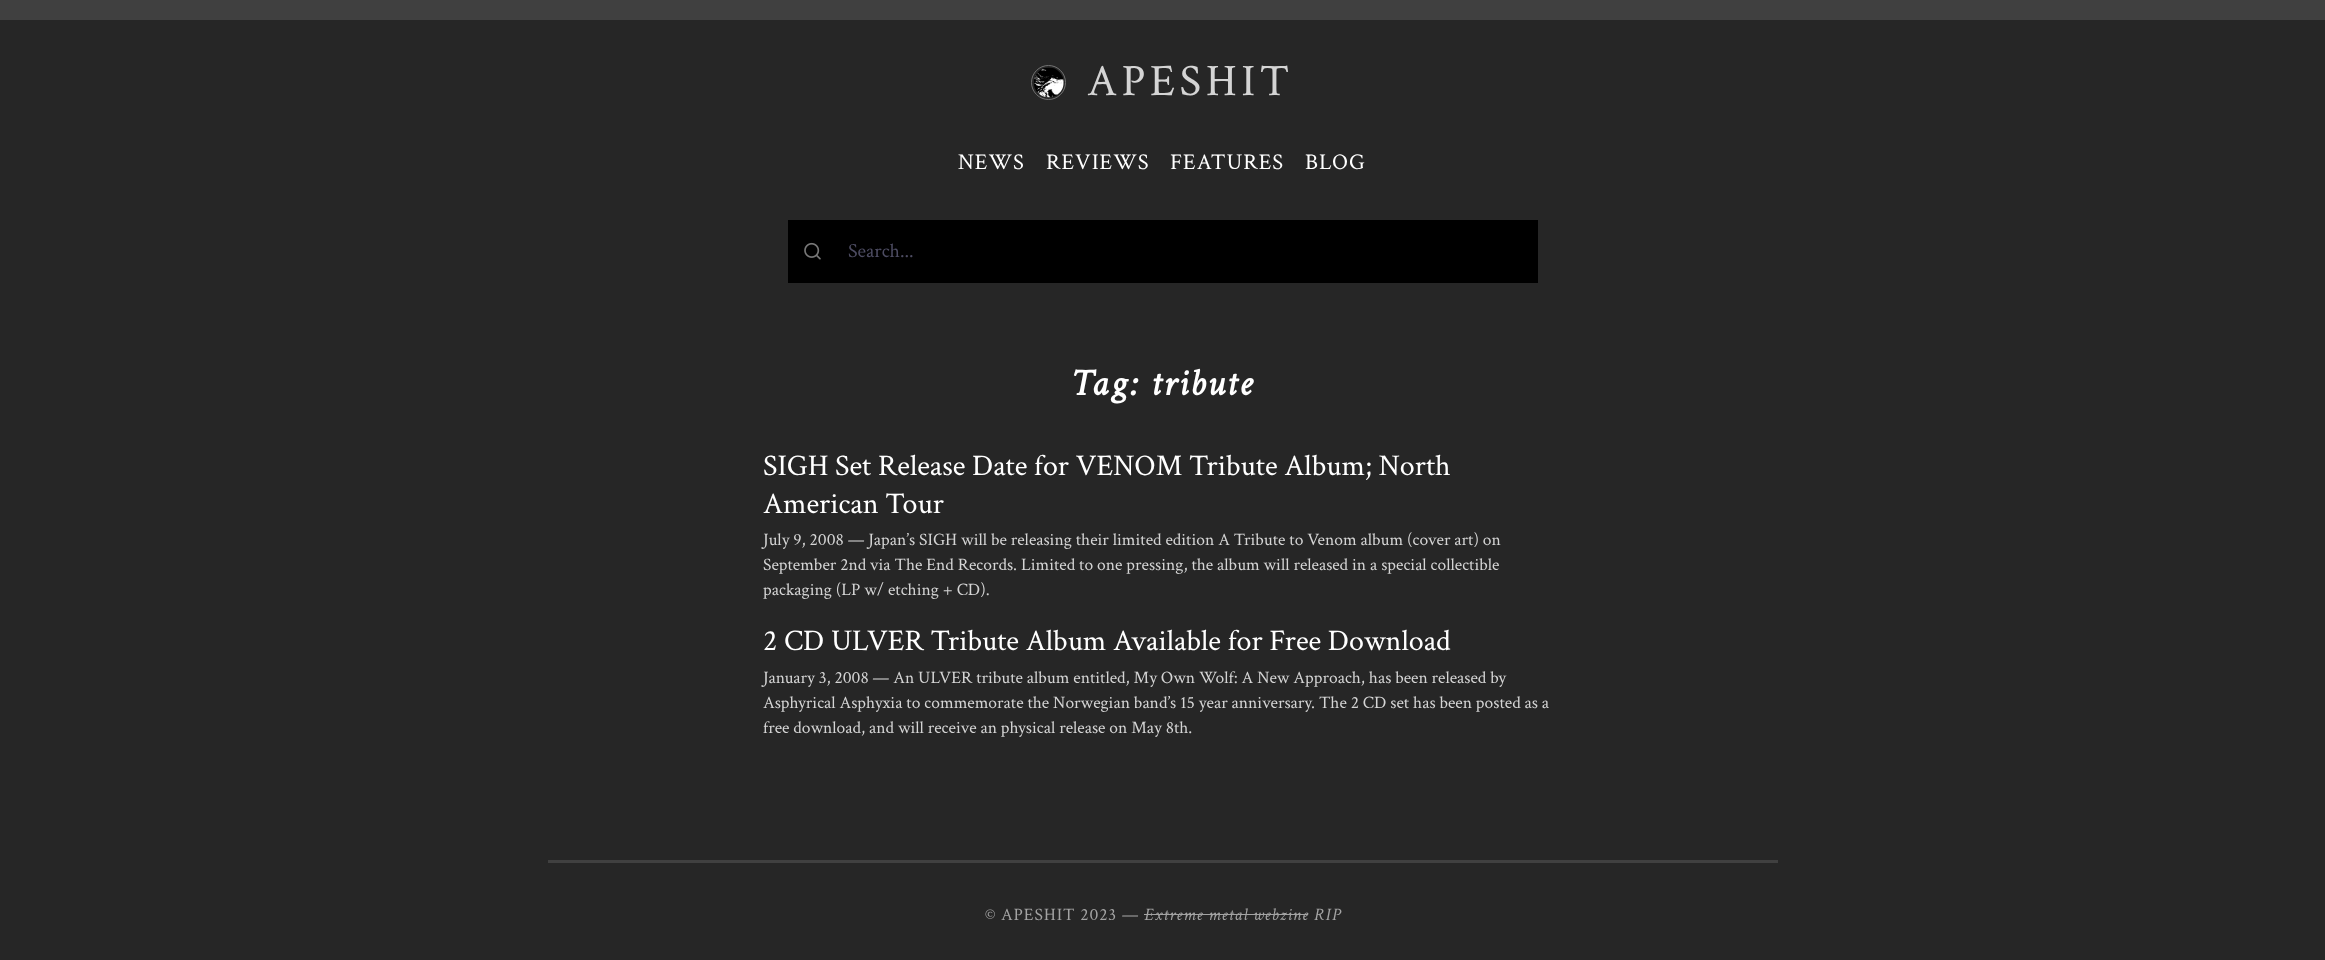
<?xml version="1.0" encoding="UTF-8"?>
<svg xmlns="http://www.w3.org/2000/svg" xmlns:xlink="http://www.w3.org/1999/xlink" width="2325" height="960">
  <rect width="100%" height="100%" fill="#262626" />
  <rect width="2325" height="20" fill="#404040" />
  <circle cx="1048.5" cy="82.5" r="17" fill="none" stroke="#737373" />
  <image x="1034" y="67" width="30" height="31" xlink:href="image1.png" />
  <rect x="788" y="220" width="750" height="63" fill="#000000" />
  <image x="804" y="242" width="17" height="18" xlink:href="image2.png" />
  <rect x="548" y="860" width="1230" height="3" fill="#404040" />
  <rect x="1144" y="914" width="164" height="1" fill="#a3a3a3" />
  <text x="1087" y="95" style="font-family: Crimson Text; font-size: 45px; letter-spacing: 4.5px; fill: #d4d4d4">APESHIT</text>
  <text x="958" y="169" style="font-family: Crimson Text; font-size: 22.5px; letter-spacing: 1px; fill: #ffffff">NEWS</text>
  <text x="1046" y="169" style="font-family: Crimson Text; font-size: 22.5px; letter-spacing: 1px; fill: #ffffff">REVIEWS</text>
  <text x="1170" y="169" style="font-family: Crimson Text; font-size: 22.5px; letter-spacing: 1px; fill: #ffffff">FEATURES</text>
  <text x="1305" y="169" style="font-family: Crimson Text; font-size: 22.5px; letter-spacing: 1px; fill: #ffffff">BLOG</text>
  <text x="848" y="257" style="font-family: Crimson Text; font-size: 20px; fill: #4d4c62">Search...</text>
  <text x="1071" y="395" style="font-family: Crimson Text; font-size: 37.5px; font-weight: bold; font-style: italic; letter-spacing: 1.9px; fill: #ffffff">Tag: tribute</text>
  <text x="763" y="475" style="font-family: Crimson Text; font-size: 30px; fill: #ffffff">SIGH Set Release Date for VENOM Tribute Album; North</text>
  <text x="763" y="513" style="font-family: Crimson Text; font-size: 30px; fill: #ffffff">American Tour</text>
  <text x="763" y="545" style="font-family: Crimson Text; font-size: 17.5px; fill: #d4d4d4">July 9, 2008 — Japan’s SIGH will be releasing their limited edition A Tribute to Venom album (cover art) on</text>
  <text x="763" y="570" style="font-family: Crimson Text; font-size: 17.5px; fill: #d4d4d4">September 2nd via The End Records. Limited to one pressing, the album will released in a special collectible</text>
  <text x="763" y="595" style="font-family: Crimson Text; font-size: 17.5px; fill: #d4d4d4">packaging (LP w/ etching + CD).</text>
  <text x="763" y="650" style="font-family: Crimson Text; font-size: 30px; fill: #ffffff">2 CD ULVER Tribute Album Available for Free Download</text>
  <text x="763" y="683" style="font-family: Crimson Text; font-size: 17.5px; fill: #d4d4d4">January 3, 2008 — An ULVER tribute album entitled, My Own Wolf: A New Approach, has been released by</text>
  <text x="763" y="708" style="font-family: Crimson Text; font-size: 17.5px; fill: #d4d4d4">Asphyrical Asphyxia to commemorate the Norwegian band’s 15 year anniversary. The 2 CD set has been posted as a</text>
  <text x="763" y="733" style="font-family: Crimson Text; font-size: 17.5px; fill: #d4d4d4">free download, and will receive an physical release on May 8th.</text>
  <text x="985" y="920" style="font-family: Crimson Text; font-size: 17.5px; letter-spacing: 0.9px; fill: #a3a3a3">© APESHIT 2023 —</text>
  <text x="1144" y="920" style="font-family: Crimson Text; font-size: 17.5px; font-style: italic; letter-spacing: 0.9px; fill: #a3a3a3">Extreme metal webzine RIP</text>
</svg>
